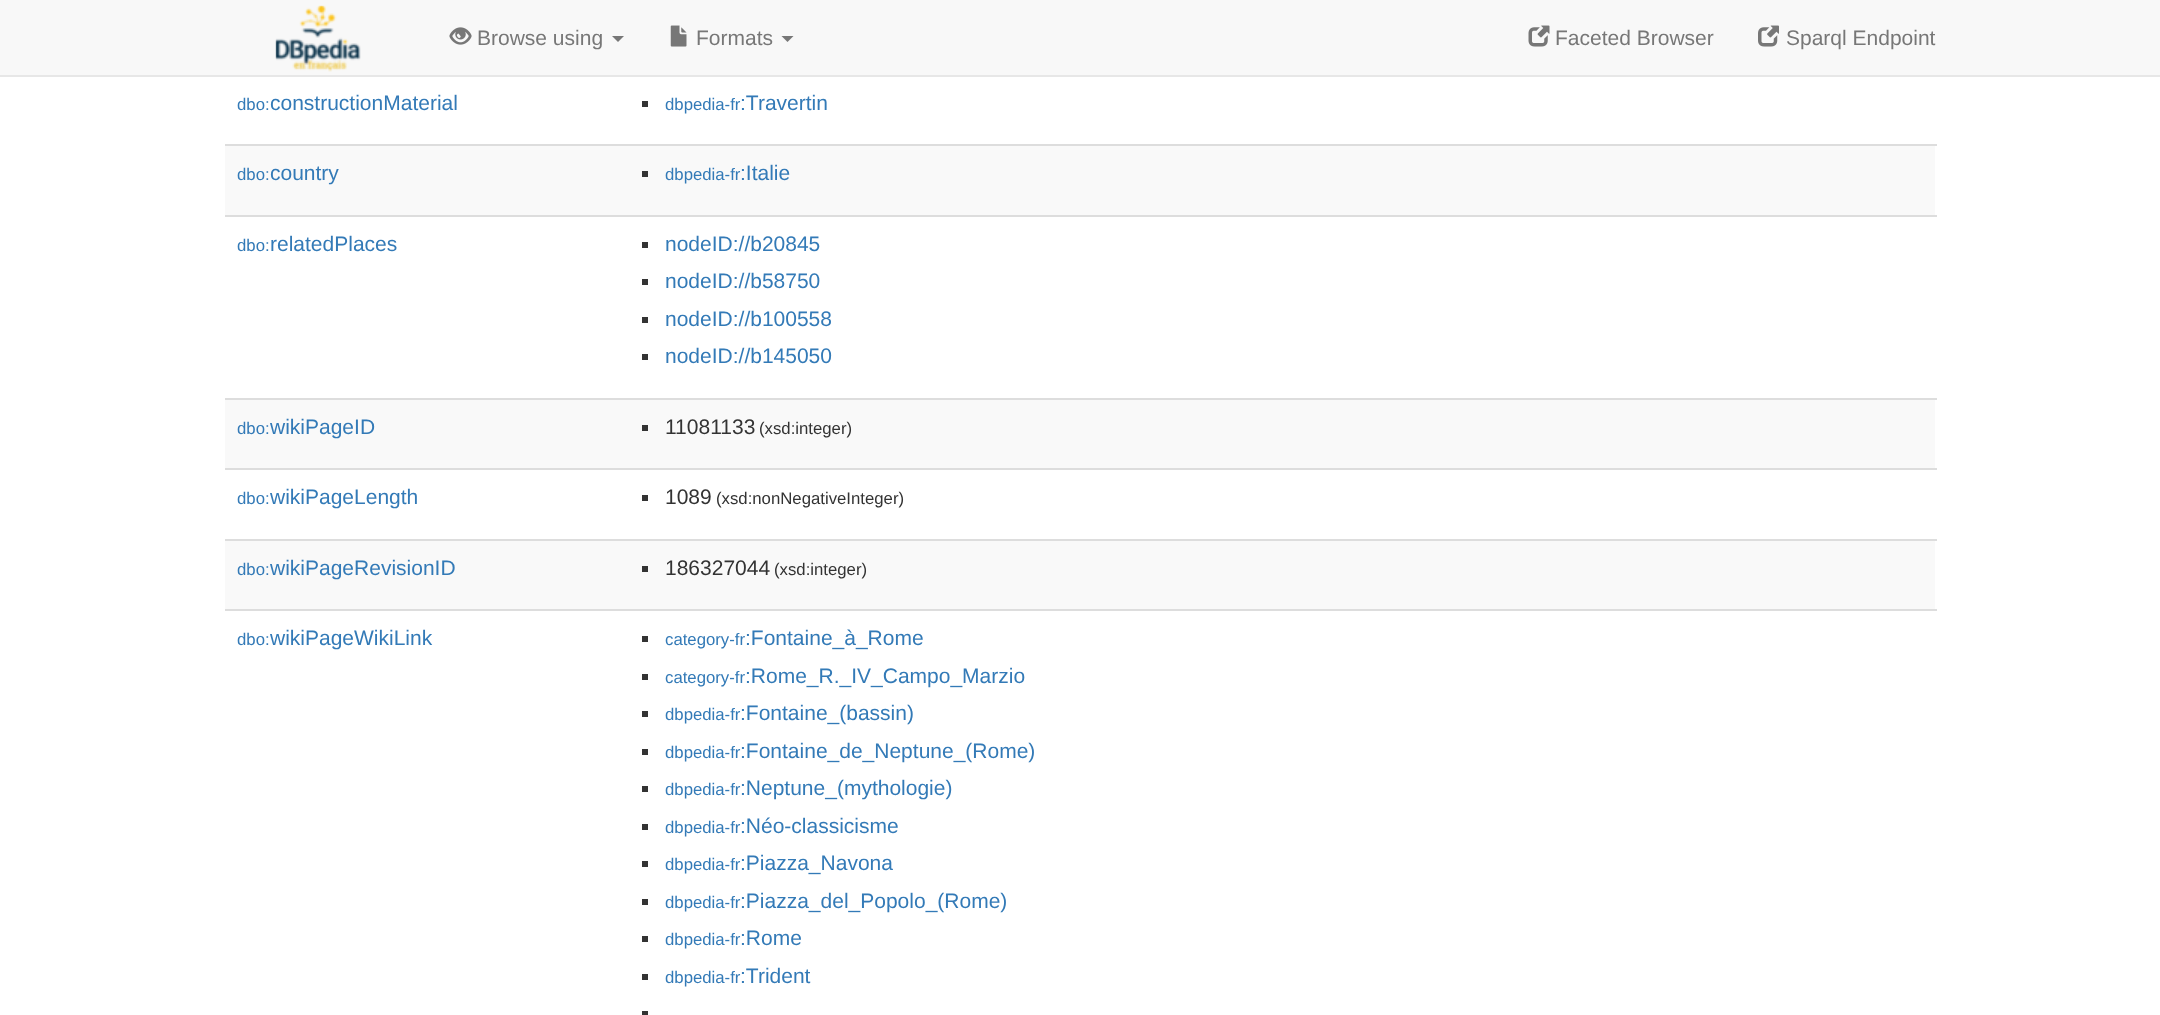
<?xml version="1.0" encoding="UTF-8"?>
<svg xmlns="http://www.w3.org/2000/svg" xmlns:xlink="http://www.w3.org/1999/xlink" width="2160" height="1015">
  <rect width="100%" height="100%" fill="#ffffff" />
  <rect width="2160" height="75" fill="#f8f8f8" />
  <rect y="75" width="2160" height="2" fill="#e7e7e7" />
  <image x="275" y="5" width="86" height="67" xlink:href="image1.png" />
  <image x="449" y="27" width="23" height="18" xlink:href="image2.png" />
  <path d="M 612 36 h 12 l -6 6 z" fill="#777777" />
  <image x="670" y="25" width="17" height="22" xlink:href="image3.png" />
  <path d="M 781.5 36 h 12 l -6 6 z" fill="#777777" />
  <image x="1528" y="25" width="22" height="22" xlink:href="image4.png" />
  <image x="1758" y="25" width="21" height="22" xlink:href="image5.png" />
  <rect x="642" y="101" width="6" height="6" fill="#333333" />
  <rect x="225" y="146" width="1710" height="69" fill="#f9f9f9" />
  <rect x="225" y="144" width="1712" height="2" fill="#dddddd" />
  <rect x="642" y="171" width="6" height="6" fill="#333333" />
  <rect x="225" y="215" width="1712" height="2" fill="#dddddd" />
  <rect x="642" y="242" width="6" height="6" fill="#333333" />
  <rect x="642" y="279" width="6" height="6" fill="#333333" />
  <rect x="642" y="317" width="6" height="6" fill="#333333" />
  <rect x="642" y="354" width="6" height="6" fill="#333333" />
  <rect x="225" y="400" width="1710" height="68" fill="#f9f9f9" />
  <rect x="225" y="398" width="1712" height="2" fill="#dddddd" />
  <rect x="642" y="425" width="6" height="6" fill="#333333" />
  <rect x="225" y="468" width="1712" height="2" fill="#dddddd" />
  <rect x="642" y="495" width="6" height="6" fill="#333333" />
  <rect x="225" y="541" width="1710" height="68" fill="#f9f9f9" />
  <rect x="225" y="539" width="1712" height="2" fill="#dddddd" />
  <rect x="642" y="566" width="6" height="6" fill="#333333" />
  <rect x="225" y="609" width="1712" height="2" fill="#dddddd" />
  <rect x="642" y="636" width="6" height="6" fill="#333333" />
  <rect x="642" y="674" width="6" height="6" fill="#333333" />
  <rect x="642" y="711" width="6" height="6" fill="#333333" />
  <rect x="642" y="749" width="6" height="6" fill="#333333" />
  <rect x="642" y="786" width="6" height="6" fill="#333333" />
  <rect x="642" y="824" width="6" height="6" fill="#333333" />
  <rect x="642" y="861" width="6" height="6" fill="#333333" />
  <rect x="642" y="899" width="6" height="6" fill="#333333" />
  <rect x="642" y="936" width="6" height="6" fill="#333333" />
  <rect x="642" y="974" width="6" height="6" fill="#333333" />
  <rect x="642" y="1011" width="6" height="4" fill="#333333" />
  <text x="477" y="45" style="font-family: Liberation Sans; font-size: 21px; fill: #777777">Browse using</text>
  <text x="696" y="45" style="font-family: Liberation Sans; font-size: 21px; fill: #777777">Formats</text>
  <text x="1555" y="45" style="font-family: Liberation Sans; font-size: 21px; fill: #777777">Faceted Browser</text>
  <text x="1786" y="45" style="font-family: Liberation Sans; font-size: 21px; fill: #777777">Sparql Endpoint</text>
  <text x="237" y="110" style="font-family: Liberation Sans; font-size: 16.75px; fill: #337ab7">dbo:</text>
  <text x="270" y="110" style="font-family: Liberation Sans; font-size: 21px; fill: #337ab7">constructionMaterial</text>
  <text x="665" y="110" style="font-family: Liberation Sans; font-size: 16.75px; fill: #337ab7">dbpedia-fr</text>
  <text x="740" y="110" style="font-family: Liberation Sans; font-size: 21px; fill: #337ab7">:Travertin</text>
  <text x="237" y="180" style="font-family: Liberation Sans; font-size: 16.75px; fill: #337ab7">dbo:</text>
  <text x="270" y="180" style="font-family: Liberation Sans; font-size: 21px; fill: #337ab7">country</text>
  <text x="665" y="180" style="font-family: Liberation Sans; font-size: 16.75px; fill: #337ab7">dbpedia-fr</text>
  <text x="740" y="180" style="font-family: Liberation Sans; font-size: 21px; fill: #337ab7">:Italie</text>
  <text x="237" y="251" style="font-family: Liberation Sans; font-size: 16.75px; fill: #337ab7">dbo:</text>
  <text x="270" y="251" style="font-family: Liberation Sans; font-size: 21px; fill: #337ab7">relatedPlaces</text>
  <text x="665" y="251" style="font-family: Liberation Sans; font-size: 21px; fill: #337ab7">nodeID://b20845</text>
  <text x="665" y="288" style="font-family: Liberation Sans; font-size: 21px; fill: #337ab7">nodeID://b58750</text>
  <text x="665" y="326" style="font-family: Liberation Sans; font-size: 21px; fill: #337ab7">nodeID://b100558</text>
  <text x="665" y="363" style="font-family: Liberation Sans; font-size: 21px; fill: #337ab7">nodeID://b145050</text>
  <text x="237" y="434" style="font-family: Liberation Sans; font-size: 16.75px; fill: #337ab7">dbo:</text>
  <text x="270" y="434" style="font-family: Liberation Sans; font-size: 21px; fill: #337ab7">wikiPageID</text>
  <text x="665" y="434" style="font-family: Liberation Sans; font-size: 21px; fill: #333333">11081133</text>
  <text x="759" y="434" style="font-family: Liberation Sans; font-size: 16.75px; fill: #333333">(xsd:integer)</text>
  <text x="237" y="504" style="font-family: Liberation Sans; font-size: 16.75px; fill: #337ab7">dbo:</text>
  <text x="270" y="504" style="font-family: Liberation Sans; font-size: 21px; fill: #337ab7">wikiPageLength</text>
  <text x="665" y="504" style="font-family: Liberation Sans; font-size: 21px; fill: #333333">1089</text>
  <text x="716" y="504" style="font-family: Liberation Sans; font-size: 16.75px; fill: #333333">(xsd:nonNegativeInteger)</text>
  <text x="237" y="575" style="font-family: Liberation Sans; font-size: 16.75px; fill: #337ab7">dbo:</text>
  <text x="270" y="575" style="font-family: Liberation Sans; font-size: 21px; fill: #337ab7">wikiPageRevisionID</text>
  <text x="665" y="575" style="font-family: Liberation Sans; font-size: 21px; fill: #333333">186327044</text>
  <text x="774" y="575" style="font-family: Liberation Sans; font-size: 16.75px; fill: #333333">(xsd:integer)</text>
  <text x="237" y="645" style="font-family: Liberation Sans; font-size: 16.75px; fill: #337ab7">dbo:</text>
  <text x="270" y="645" style="font-family: Liberation Sans; font-size: 21px; fill: #337ab7">wikiPageWikiLink</text>
  <text x="665" y="645" style="font-family: Liberation Sans; font-size: 16.75px; fill: #337ab7">category-fr</text>
  <text x="745" y="645" style="font-family: Liberation Sans; font-size: 21px; fill: #337ab7">:Fontaine_à_Rome</text>
  <text x="665" y="683" style="font-family: Liberation Sans; font-size: 16.75px; fill: #337ab7">category-fr</text>
  <text x="745" y="683" style="font-family: Liberation Sans; font-size: 21px; fill: #337ab7">:Rome_R._IV_Campo_Marzio</text>
  <text x="665" y="720" style="font-family: Liberation Sans; font-size: 16.75px; fill: #337ab7">dbpedia-fr</text>
  <text x="740" y="720" style="font-family: Liberation Sans; font-size: 21px; fill: #337ab7">:Fontaine_(bassin)</text>
  <text x="665" y="758" style="font-family: Liberation Sans; font-size: 16.75px; fill: #337ab7">dbpedia-fr</text>
  <text x="740" y="758" style="font-family: Liberation Sans; font-size: 21px; fill: #337ab7">:Fontaine_de_Neptune_(Rome)</text>
  <text x="665" y="795" style="font-family: Liberation Sans; font-size: 16.75px; fill: #337ab7">dbpedia-fr</text>
  <text x="740" y="795" style="font-family: Liberation Sans; font-size: 21px; fill: #337ab7">:Neptune_(mythologie)</text>
  <text x="665" y="833" style="font-family: Liberation Sans; font-size: 16.75px; fill: #337ab7">dbpedia-fr</text>
  <text x="740" y="833" style="font-family: Liberation Sans; font-size: 21px; fill: #337ab7">:Néo-classicisme</text>
  <text x="665" y="870" style="font-family: Liberation Sans; font-size: 16.75px; fill: #337ab7">dbpedia-fr</text>
  <text x="740" y="870" style="font-family: Liberation Sans; font-size: 21px; fill: #337ab7">:Piazza_Navona</text>
  <text x="665" y="908" style="font-family: Liberation Sans; font-size: 16.75px; fill: #337ab7">dbpedia-fr</text>
  <text x="740" y="908" style="font-family: Liberation Sans; font-size: 21px; fill: #337ab7">:Piazza_del_Popolo_(Rome)</text>
  <text x="665" y="945" style="font-family: Liberation Sans; font-size: 16.75px; fill: #337ab7">dbpedia-fr</text>
  <text x="740" y="945" style="font-family: Liberation Sans; font-size: 21px; fill: #337ab7">:Rome</text>
  <text x="665" y="983" style="font-family: Liberation Sans; font-size: 16.75px; fill: #337ab7">dbpedia-fr</text>
  <text x="740" y="983" style="font-family: Liberation Sans; font-size: 21px; fill: #337ab7">:Trident</text>
</svg>
